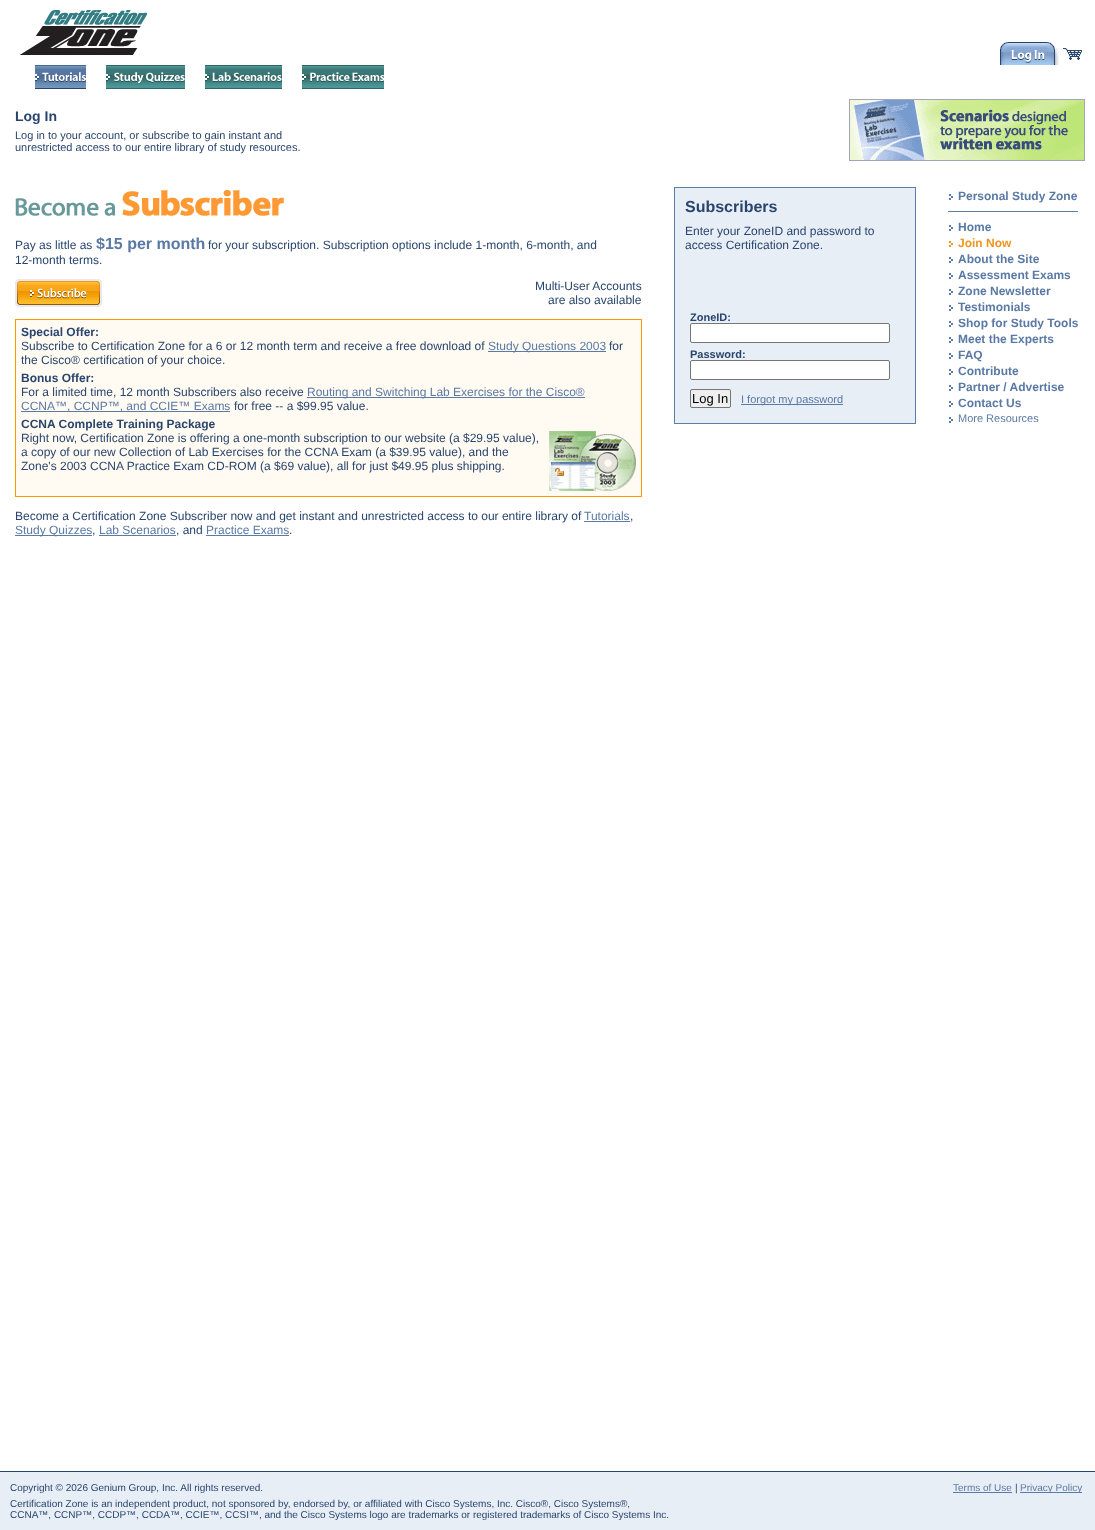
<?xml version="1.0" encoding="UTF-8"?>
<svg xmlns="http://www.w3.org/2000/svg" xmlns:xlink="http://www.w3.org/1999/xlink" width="1095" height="1530">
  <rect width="100%" height="100%" fill="#ffffff" />
  <image x="20" y="10" width="127" height="45" xlink:href="image1.png" />
  <image x="1000" y="42" width="59" height="23" xlink:href="image2.png" />
  <image x="1063" y="48" width="19" height="12" xlink:href="image3.png" />
  <image x="35" y="65" width="51" height="24" xlink:href="image4.png" />
  <image x="106" y="65" width="79" height="24" xlink:href="image5.png" />
  <image x="205" y="65" width="77" height="24" xlink:href="image6.png" />
  <image x="302" y="65" width="82" height="24" xlink:href="image7.png" />
  <rect x="849" y="99" width="236" height="62" fill="#a2a7b6" />
  <image x="850" y="100" width="234" height="60" xlink:href="image8.png" />
  <image x="15" y="190" width="269" height="26" xlink:href="image9.png" />
  <image x="15" y="279" width="87" height="28" xlink:href="image10.png" />
  <rect x="15" y="319" width="627" height="1" fill="#ff9900" />
  <rect x="15" y="320" width="1" height="176" fill="#ff9900" />
  <rect x="16" y="320" width="625" height="176" fill="#fffaf2" />
  <rect x="488" y="351" width="118" height="1" fill="#5b7aa6" />
  <rect x="307" y="397" width="278" height="1" fill="#5b7aa6" />
  <rect x="21" y="411" width="209" height="1" fill="#5b7aa6" />
  <image x="549" y="431" width="87" height="60" xlink:href="image11.png" />
  <rect x="641" y="320" width="1" height="176" fill="#ff9900" />
  <rect x="15" y="496" width="627" height="1" fill="#ff9900" />
  <rect x="584" y="521" width="46" height="1" fill="#5b7aa6" />
  <rect x="15" y="535" width="77" height="1" fill="#5b7aa6" />
  <rect x="99" y="535" width="77" height="1" fill="#5b7aa6" />
  <rect x="206" y="535" width="83" height="1" fill="#5b7aa6" />
  <rect x="674" y="187" width="242" height="1" fill="#5d7da9" />
  <rect x="674" y="188" width="1" height="235" fill="#5d7da9" />
  <rect x="675" y="188" width="240" height="235" fill="#e8eef6" />
  <rect x="690.5" y="323.5" width="199" height="19" rx="1.5" fill="#ffffff" stroke="#767676" />
  <rect x="690.5" y="360.5" width="199" height="19" rx="1.5" fill="#ffffff" stroke="#767676" />
  <rect x="690.5" y="389.5" width="40" height="18" rx="1.5" fill="#efefef" stroke="#767676" />
  <rect x="741" y="404" width="102" height="1" fill="#5b7aa6" />
  <rect x="915" y="188" width="1" height="235" fill="#5d7da9" />
  <rect x="674" y="423" width="242" height="1" fill="#5d7da9" />
  <image x="949" y="194" width="4" height="6" xlink:href="image12.png" />
  <rect x="948" y="211" width="130" height="1" fill="#5d7da9" />
  <image x="949" y="225" width="4" height="6" xlink:href="image12.png" />
  <image x="949" y="241" width="4" height="6" xlink:href="image13.png" />
  <image x="949" y="257" width="4" height="6" xlink:href="image12.png" />
  <image x="949" y="273" width="4" height="6" xlink:href="image12.png" />
  <image x="949" y="289" width="4" height="6" xlink:href="image12.png" />
  <image x="949" y="305" width="4" height="6" xlink:href="image12.png" />
  <image x="949" y="321" width="4" height="6" xlink:href="image12.png" />
  <image x="949" y="337" width="4" height="6" xlink:href="image12.png" />
  <image x="949" y="353" width="4" height="6" xlink:href="image12.png" />
  <image x="949" y="369" width="4" height="6" xlink:href="image12.png" />
  <image x="949" y="385" width="4" height="6" xlink:href="image12.png" />
  <image x="949" y="401" width="4" height="6" xlink:href="image12.png" />
  <image x="949" y="417" width="4" height="6" xlink:href="image12.png" />
  <rect y="1471" width="1095" height="1" fill="#29456e" />
  <rect y="1472" width="1095" height="58" fill="#e8eef6" />
  <rect x="953" y="1492" width="59" height="1" fill="#5b7aa6" />
  <rect x="1020" y="1492" width="62" height="1" fill="#5b7aa6" />
  <text x="15" y="121" style="font-family: Liberation Sans; font-size: 14px; font-weight: bold; fill: #29456e">Log In</text>
  <text x="15" y="139" style="font-family: Liberation Sans; font-size: 11px; fill: #29456e">Log in to your account, or subscribe to gain instant and</text>
  <text x="15" y="151" style="font-family: Liberation Sans; font-size: 11px; fill: #29456e">unrestricted access to our entire library of study resources.</text>
  <text x="15" y="249" style="font-family: Liberation Sans; font-size: 12px; fill: #29456e">Pay as little as</text>
  <text x="96" y="249" style="font-family: Liberation Sans; font-size: 16px; font-weight: bold; fill: #5a79a4">$15 per month</text>
  <text x="208" y="249" style="font-family: Liberation Sans; font-size: 12px; fill: #29456e">for your subscription. Subscription options include 1-month, 6-month, and</text>
  <text x="15" y="264" style="font-family: Liberation Sans; font-size: 12px; fill: #29456e">12-month terms.</text>
  <text x="535" y="290" style="font-family: Liberation Sans; font-size: 12px; fill: #29456e">Multi-User Accounts</text>
  <text x="548" y="304" style="font-family: Liberation Sans; font-size: 12px; fill: #29456e">are also available</text>
  <text x="21" y="336" style="font-family: Liberation Sans; font-size: 12px; font-weight: bold; fill: #29456e">Special Offer:</text>
  <text x="21" y="350" style="font-family: Liberation Sans; font-size: 12px; fill: #29456e">Subscribe to Certification Zone for a 6 or 12 month term and receive a free download of</text>
  <text x="488" y="350" style="font-family: Liberation Sans; font-size: 12px; fill: #5a79a4">Study Questions 2003</text>
  <text x="609" y="350" style="font-family: Liberation Sans; font-size: 12px; fill: #29456e">for</text>
  <text x="21" y="364" style="font-family: Liberation Sans; font-size: 12px; fill: #29456e">the Cisco® certification of your choice.</text>
  <text x="21" y="382" style="font-family: Liberation Sans; font-size: 12px; font-weight: bold; fill: #29456e">Bonus Offer:</text>
  <text x="21" y="396" style="font-family: Liberation Sans; font-size: 12px; fill: #29456e">For a limited time, 12 month Subscribers also receive</text>
  <text x="307" y="396" style="font-family: Liberation Sans; font-size: 12px; fill: #5a79a4">Routing and Switching Lab Exercises for the Cisco®</text>
  <text x="21" y="410" style="font-family: Liberation Sans; font-size: 12px; fill: #5a79a4">CCNA™, CCNP™, and CCIE™ Exams</text>
  <text x="234" y="410" style="font-family: Liberation Sans; font-size: 12px; fill: #29456e">for free -- a $99.95 value.</text>
  <text x="21" y="428" style="font-family: Liberation Sans; font-size: 12px; font-weight: bold; fill: #29456e">CCNA Complete Training Package</text>
  <text x="21" y="442" style="font-family: Liberation Sans; font-size: 12px; fill: #29456e">Right now, Certification Zone is offering a one-month subscription to our website (a $29.95 value),</text>
  <text x="21" y="456" style="font-family: Liberation Sans; font-size: 12px; fill: #29456e">a copy of our new Collection of Lab Exercises for the CCNA Exam (a $39.95 value), and the</text>
  <text x="21" y="470" style="font-family: Liberation Sans; font-size: 12px; fill: #29456e">Zone's 2003 CCNA Practice Exam CD-ROM (a $69 value), all for just $49.95 plus shipping.</text>
  <text x="15" y="520" style="font-family: Liberation Sans; font-size: 12px; fill: #29456e">Become a Certification Zone Subscriber now and get instant and unrestricted access to our entire library of</text>
  <text x="584" y="520" style="font-family: Liberation Sans; font-size: 12px; fill: #5a79a4">Tutorials</text>
  <text x="630" y="520" style="font-family: Liberation Sans; font-size: 12px; fill: #29456e">,</text>
  <text x="15" y="534" style="font-family: Liberation Sans; font-size: 12px; fill: #5a79a4">Study Quizzes</text>
  <text x="92" y="534" style="font-family: Liberation Sans; font-size: 12px; fill: #29456e">,</text>
  <text x="99" y="534" style="font-family: Liberation Sans; font-size: 12px; fill: #5a79a4">Lab Scenarios</text>
  <text x="176" y="534" style="font-family: Liberation Sans; font-size: 12px; fill: #29456e">, and</text>
  <text x="206" y="534" style="font-family: Liberation Sans; font-size: 12px; fill: #5a79a4">Practice Exams</text>
  <text x="289" y="534" style="font-family: Liberation Sans; font-size: 12px; fill: #29456e">.</text>
  <text x="685" y="212" style="font-family: Liberation Sans; font-size: 16px; font-weight: bold; fill: #29456e">Subscribers</text>
  <text x="685" y="235" style="font-family: Liberation Sans; font-size: 12px; fill: #29456e">Enter your ZoneID and password to</text>
  <text x="685" y="249" style="font-family: Liberation Sans; font-size: 12px; fill: #29456e">access Certification Zone.</text>
  <text x="690" y="321" style="font-family: Liberation Sans; font-size: 11px; font-weight: bold; fill: #29456e">ZoneID:</text>
  <text x="690" y="358" style="font-family: Liberation Sans; font-size: 11px; font-weight: bold; fill: #29456e">Password:</text>
  <text x="692" y="403" style="font-family: Liberation Sans; font-size: 13px; fill: #000000">Log In</text>
  <text x="741" y="403" style="font-family: Liberation Sans; font-size: 11px; fill: #5a79a4">I forgot my password</text>
  <text x="958" y="200" style="font-family: Liberation Sans; font-size: 12px; font-weight: bold; fill: #5a79a4">Personal Study Zone</text>
  <text x="958" y="231" style="font-family: Liberation Sans; font-size: 12px; font-weight: bold; fill: #5a79a4">Home</text>
  <text x="958" y="247" style="font-family: Liberation Sans; font-size: 12px; font-weight: bold; fill: #f0941d">Join Now</text>
  <text x="958" y="263" style="font-family: Liberation Sans; font-size: 12px; font-weight: bold; fill: #5a79a4">About the Site</text>
  <text x="958" y="279" style="font-family: Liberation Sans; font-size: 12px; font-weight: bold; fill: #5a79a4">Assessment Exams</text>
  <text x="958" y="295" style="font-family: Liberation Sans; font-size: 12px; font-weight: bold; fill: #5a79a4">Zone Newsletter</text>
  <text x="958" y="311" style="font-family: Liberation Sans; font-size: 12px; font-weight: bold; fill: #5a79a4">Testimonials</text>
  <text x="958" y="327" style="font-family: Liberation Sans; font-size: 12px; font-weight: bold; fill: #5a79a4">Shop for Study Tools</text>
  <text x="958" y="343" style="font-family: Liberation Sans; font-size: 12px; font-weight: bold; fill: #5a79a4">Meet the Experts</text>
  <text x="958" y="359" style="font-family: Liberation Sans; font-size: 12px; font-weight: bold; fill: #5a79a4">FAQ</text>
  <text x="958" y="375" style="font-family: Liberation Sans; font-size: 12px; font-weight: bold; fill: #5a79a4">Contribute</text>
  <text x="958" y="391" style="font-family: Liberation Sans; font-size: 12px; font-weight: bold; fill: #5a79a4">Partner / Advertise</text>
  <text x="958" y="407" style="font-family: Liberation Sans; font-size: 12px; font-weight: bold; fill: #5a79a4">Contact Us</text>
  <text x="958" y="422" style="font-family: Liberation Sans; font-size: 11px; fill: #5a79a4">More Resources</text>
  <text x="10" y="1491" style="font-family: Liberation Sans; font-size: 10px; fill: #29456e">Copyright © 2026 Genium Group, Inc. All rights reserved.</text>
  <text x="953" y="1491" style="font-family: Liberation Sans; font-size: 10px; fill: #5a79a4">Terms of Use</text>
  <text x="1015" y="1491" style="font-family: Liberation Sans; font-size: 10px; fill: #29456e">|</text>
  <text x="1020" y="1491" style="font-family: Liberation Sans; font-size: 10px; fill: #5a79a4">Privacy Policy</text>
  <text x="10" y="1507" style="font-family: Liberation Sans; font-size: 10px; fill: #29456e">Certification Zone is an independent product, not sponsored by, endorsed by, or affiliated with Cisco Systems, Inc. Cisco®, Cisco Systems®,</text>
  <text x="10" y="1518" style="font-family: Liberation Sans; font-size: 10px; fill: #29456e">CCNA™, CCNP™, CCDP™, CCDA™, CCIE™, CCSI™, and the Cisco Systems logo are trademarks or registered trademarks of Cisco Systems Inc.</text>
</svg>
